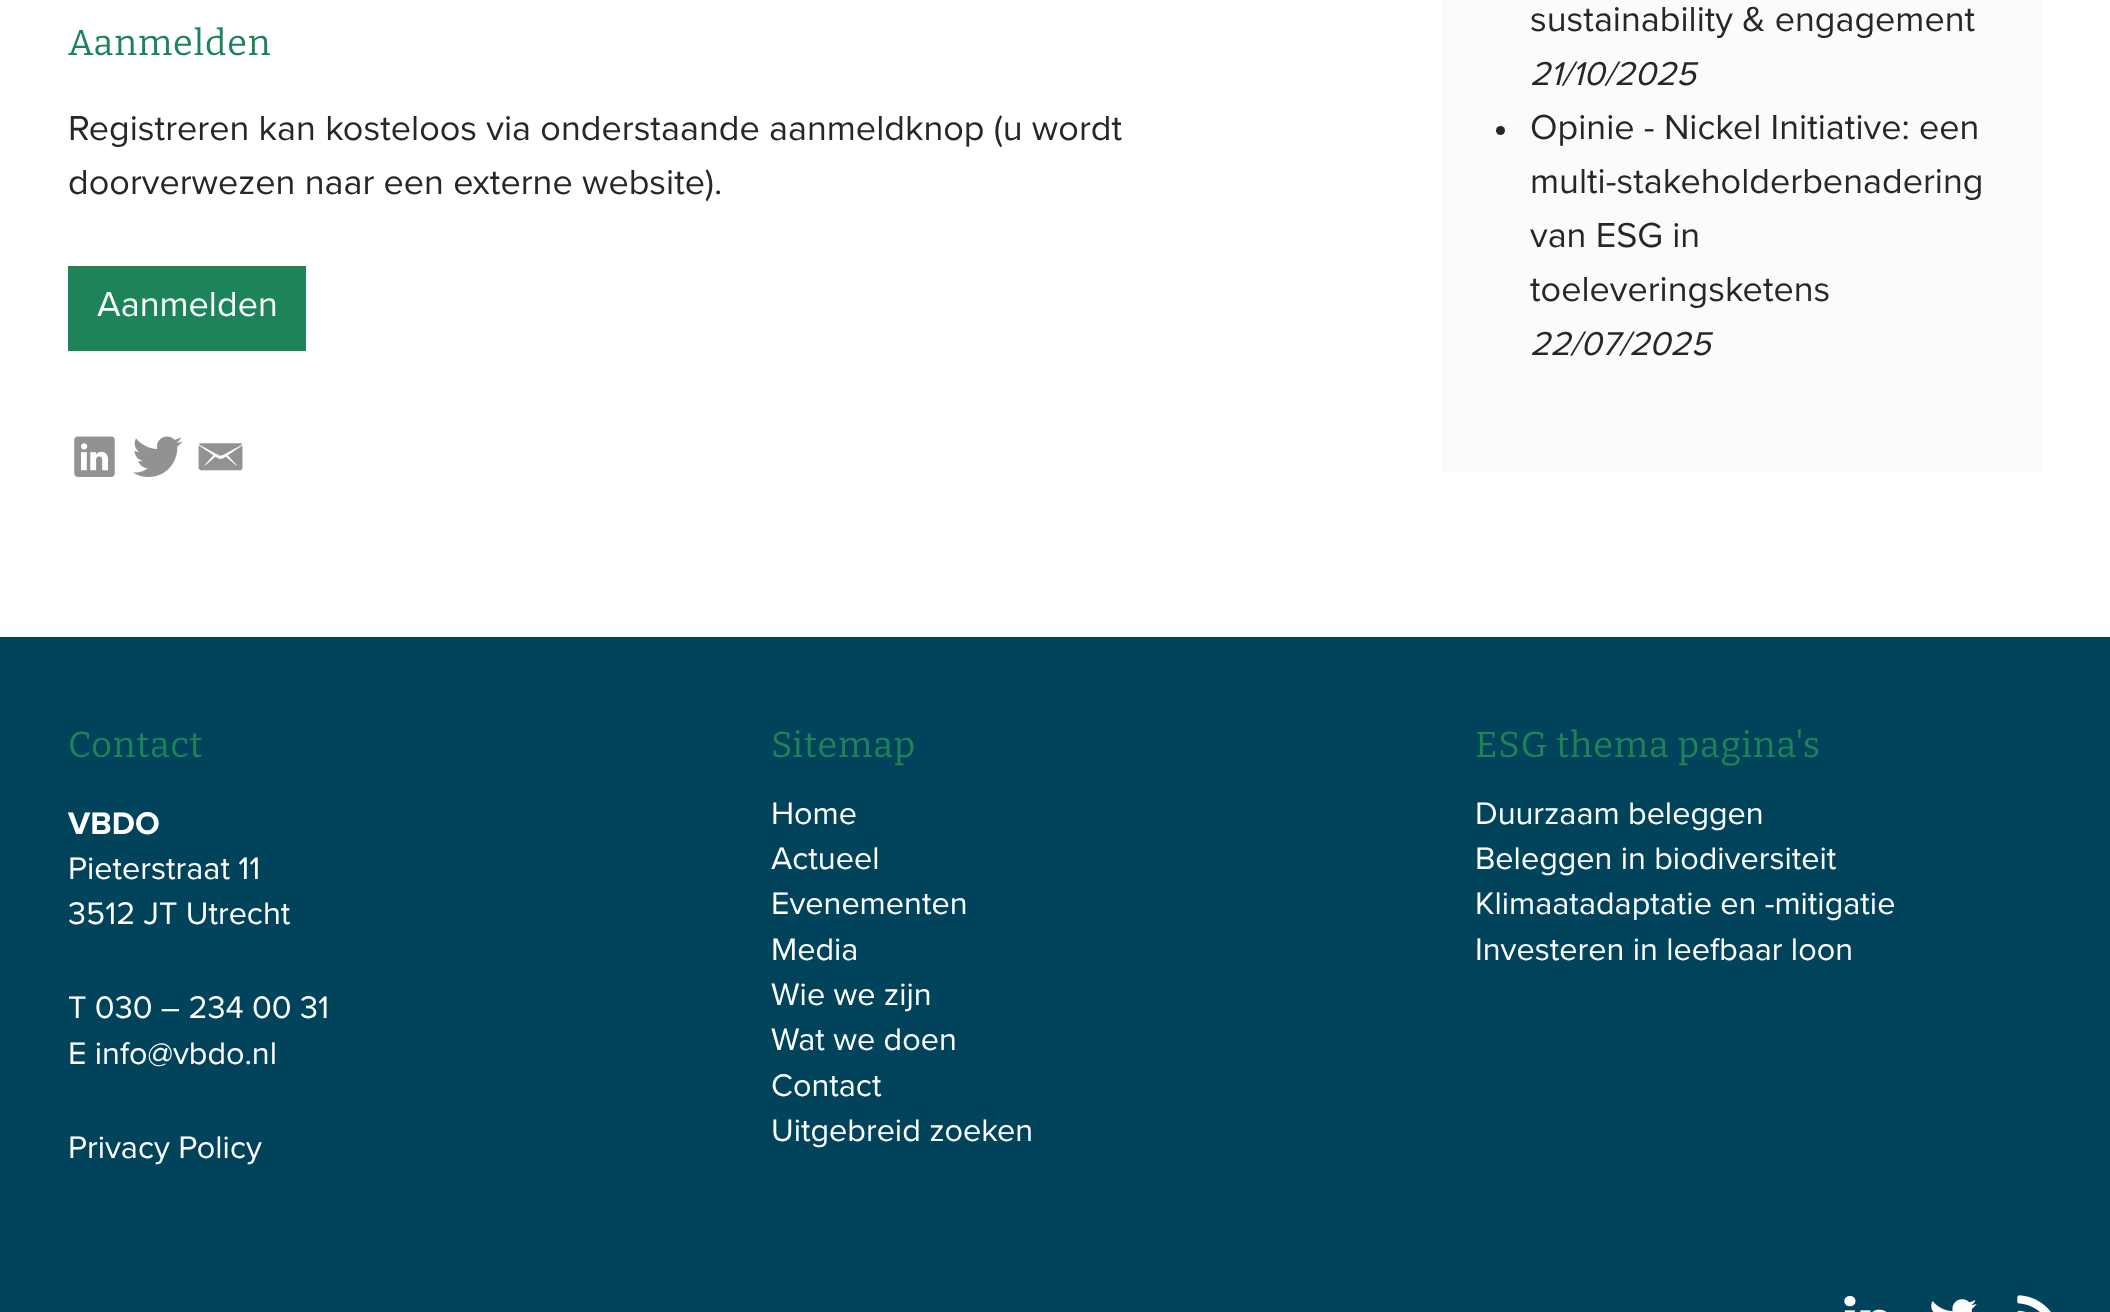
<?xml version="1.0" encoding="UTF-8"?>
<svg xmlns="http://www.w3.org/2000/svg" xmlns:xlink="http://www.w3.org/1999/xlink" width="2110" height="1312">
  <rect width="100%" height="100%" fill="#ffffff" />
  <rect x="68" y="266" width="238" height="85" fill="#1d8459" />
  <image x="74" y="436" width="41" height="41" xlink:href="image1.png" />
  <image x="133" y="436" width="50" height="41" xlink:href="image2.png" />
  <image x="198" y="443" width="45" height="28" xlink:href="image3.png" />
  <rect x="1442" width="601" height="473" fill="#fbfbfb" />
  <circle cx="1500.5" cy="130.5" r="4.5" fill="#282727" />
  <rect y="637" width="2110" height="675" fill="#01435b" />
  <image x="1844" y="1296" width="43" height="16" xlink:href="image4.png" />
  <image x="1931" y="1299" width="46" height="13" xlink:href="image5.png" />
  <image x="2017" y="1295" width="34" height="17" xlink:href="image6.png" />
  <text x="68" y="55" style="font-family: Bitter; font-size: 36px; letter-spacing: 0.9px; fill: #1d8459">Aanmelden</text>
  <text x="68" y="140" style="font-family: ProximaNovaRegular; font-size: 36px; fill: #282727">Registreren kan kosteloos via onderstaande aanmeldknop (u wordt</text>
  <text x="68" y="194" style="font-family: ProximaNovaRegular; font-size: 36px; fill: #282727">doorverwezen naar een externe website).</text>
  <text x="97" y="316" style="font-family: ProximaNovaRegular; font-size: 36px; fill: #ffffff">Aanmelden</text>
  <text x="1530" y="31" style="font-family: ProximaNovaRegular; font-size: 36px; fill: #282727">sustainability &amp; engagement</text>
  <text x="1530" y="85" style="font-family: ProximaNovaRegular; font-size: 34.25px; font-style: italic; fill: #282727">21/10/2025</text>
  <text x="1530" y="139" style="font-family: ProximaNovaRegular; font-size: 36px; fill: #282727">Opinie - Nickel Initiative: een</text>
  <text x="1530" y="193" style="font-family: ProximaNovaRegular; font-size: 36px; fill: #282727">multi-stakeholderbenadering</text>
  <text x="1530" y="247" style="font-family: ProximaNovaRegular; font-size: 36px; fill: #282727">van ESG in</text>
  <text x="1530" y="301" style="font-family: ProximaNovaRegular; font-size: 36px; fill: #282727">toeleveringsketens</text>
  <text x="1530" y="355" style="font-family: ProximaNovaRegular; font-size: 34.25px; font-style: italic; fill: #282727">22/07/2025</text>
  <text x="68" y="757" style="font-family: Bitter; font-size: 36px; letter-spacing: 0.9px; fill: #1d8459">Contact</text>
  <text x="68" y="834" style="font-family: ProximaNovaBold; font-size: 32.4px; fill: #ffffff">VBDO</text>
  <text x="68" y="879" style="font-family: ProximaNovaRegular; font-size: 32.4px; fill: #ffffff">Pieterstraat 11</text>
  <text x="68" y="924" style="font-family: ProximaNovaRegular; font-size: 32.4px; fill: #ffffff">3512 JT Utrecht</text>
  <text x="68" y="1018" style="font-family: ProximaNovaRegular; font-size: 32.4px; fill: #ffffff">T 030 – 234 00 31</text>
  <text x="68" y="1064" style="font-family: ProximaNovaRegular; font-size: 32.4px; fill: #ffffff">E info@vbdo.nl</text>
  <text x="68" y="1158" style="font-family: ProximaNovaRegular; font-size: 32.4px; fill: #ffffff">Privacy Policy</text>
  <text x="771" y="757" style="font-family: Bitter; font-size: 36px; letter-spacing: 0.9px; fill: #1d8459">Sitemap</text>
  <text x="771" y="824" style="font-family: ProximaNovaRegular; font-size: 32.4px; fill: #ffffff">Home</text>
  <text x="771" y="869" style="font-family: ProximaNovaRegular; font-size: 32.4px; fill: #ffffff">Actueel</text>
  <text x="771" y="914" style="font-family: ProximaNovaRegular; font-size: 32.4px; fill: #ffffff">Evenementen</text>
  <text x="771" y="960" style="font-family: ProximaNovaRegular; font-size: 32.4px; fill: #ffffff">Media</text>
  <text x="771" y="1005" style="font-family: ProximaNovaRegular; font-size: 32.4px; fill: #ffffff">Wie we zijn</text>
  <text x="771" y="1050" style="font-family: ProximaNovaRegular; font-size: 32.4px; fill: #ffffff">Wat we doen</text>
  <text x="771" y="1096" style="font-family: ProximaNovaRegular; font-size: 32.4px; fill: #ffffff">Contact</text>
  <text x="771" y="1141" style="font-family: ProximaNovaRegular; font-size: 32.4px; fill: #ffffff">Uitgebreid zoeken</text>
  <text x="1475" y="757" style="font-family: Bitter; font-size: 36px; letter-spacing: 0.9px; fill: #1d8459">ESG thema pagina's</text>
  <text x="1475" y="824" style="font-family: ProximaNovaRegular; font-size: 32.4px; fill: #ffffff">Duurzaam beleggen</text>
  <text x="1475" y="869" style="font-family: ProximaNovaRegular; font-size: 32.4px; fill: #ffffff">Beleggen in biodiversiteit</text>
  <text x="1475" y="914" style="font-family: ProximaNovaRegular; font-size: 32.4px; fill: #ffffff">Klimaatadaptatie en -mitigatie</text>
  <text x="1475" y="960" style="font-family: ProximaNovaRegular; font-size: 32.4px; fill: #ffffff">Investeren in leefbaar loon</text>
</svg>
